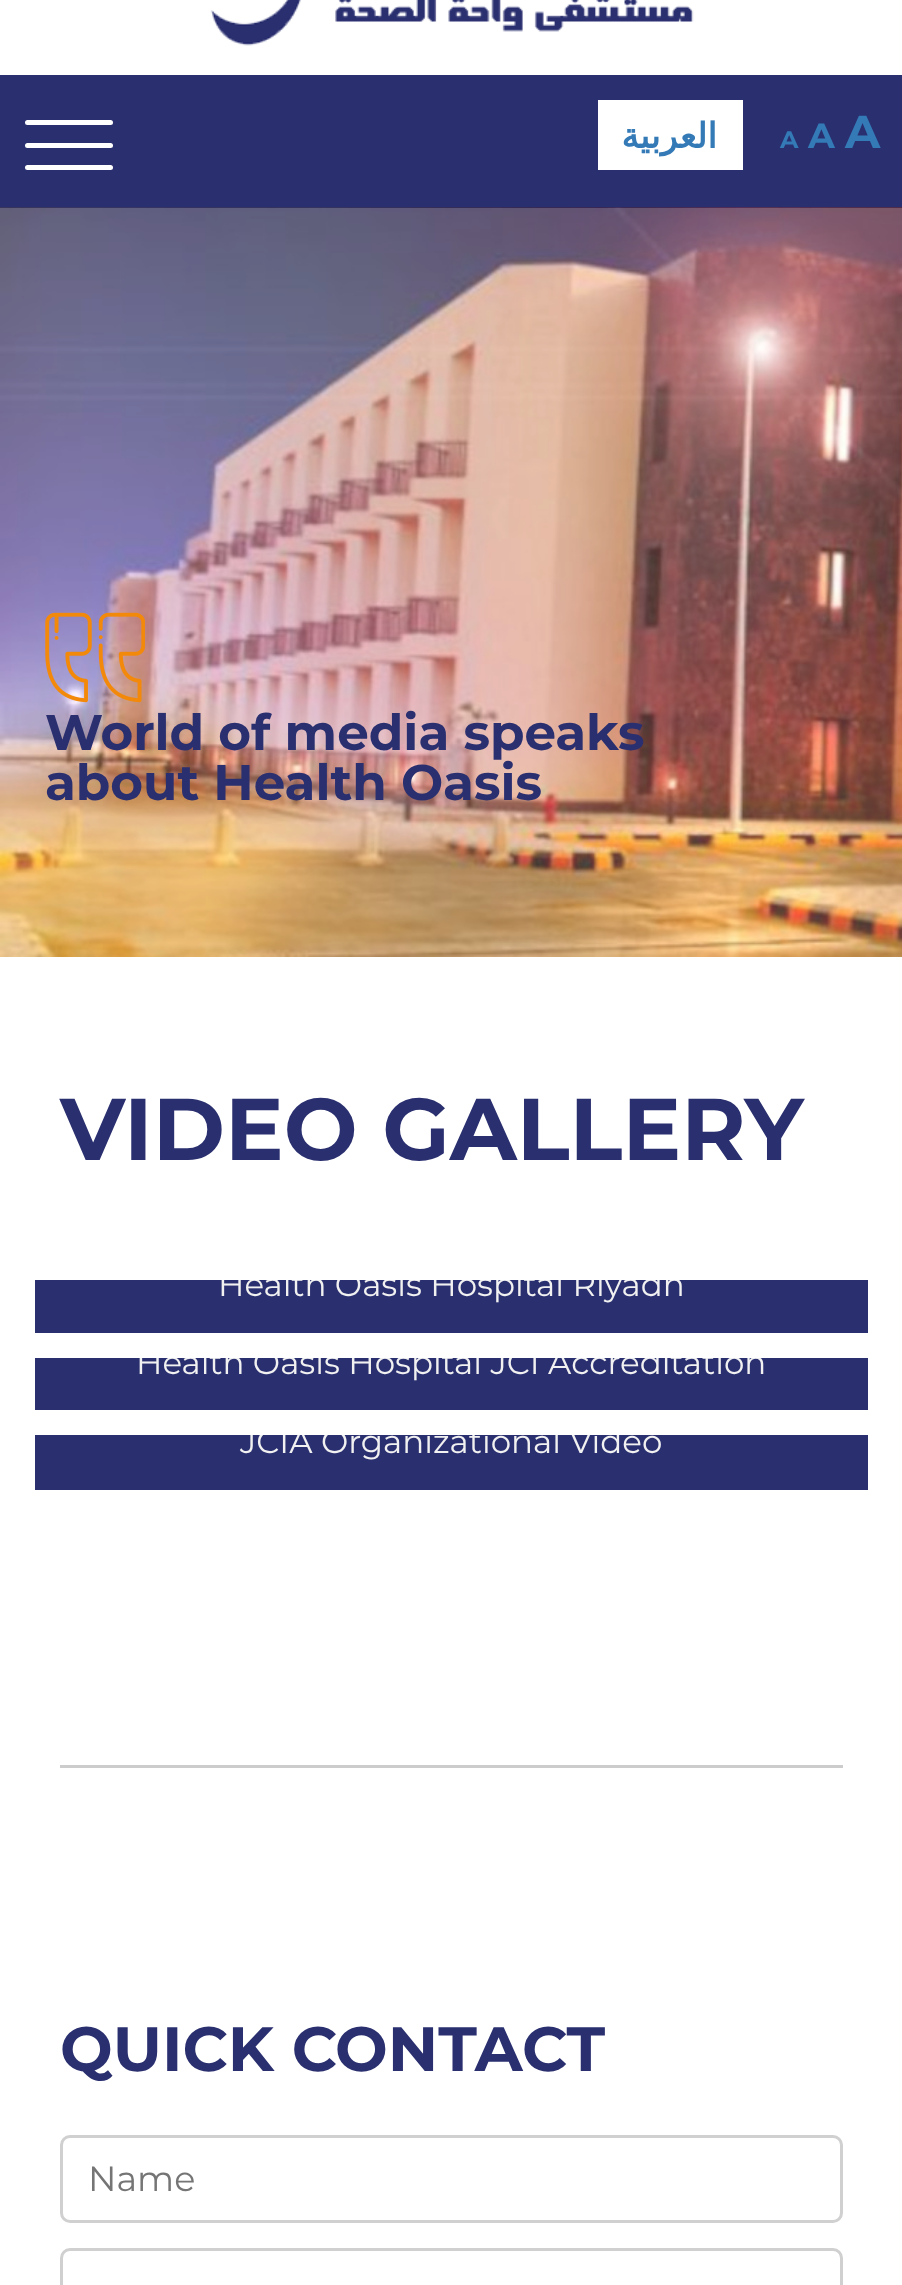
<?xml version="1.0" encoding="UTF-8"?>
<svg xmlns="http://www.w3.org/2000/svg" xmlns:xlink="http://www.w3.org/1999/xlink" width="902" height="2285">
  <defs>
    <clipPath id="clip1"><rect x="35" y="1280" width="833" height="53" /></clipPath>
    <clipPath id="clip2"><rect x="35" y="1358" width="833" height="52" /></clipPath>
    <clipPath id="clip3"><rect x="35" y="1435" width="833" height="55" /></clipPath>
  </defs>
  <rect width="100%" height="100%" fill="#ffffff" />
  <image x="210" y="0" width="484" height="46" xlink:href="image1.png" />
  <rect y="75" width="902" height="133" fill="#2a2f6f" />
  <rect x="25" y="120" width="88" height="5" rx="2.5" fill="#ffffff" />
  <rect x="25" y="143" width="88" height="5" rx="2.5" fill="#ffffff" />
  <rect x="25" y="165" width="88" height="5" rx="2.5" fill="#ffffff" />
  <rect x="598" y="100" width="145" height="70" fill="#ffffff" />
  <image x="0" y="207" width="902" height="750" xlink:href="image2.png" />
  <image x="45" y="612" width="100" height="91" xlink:href="image3.png" />
  <rect x="35" y="1280" width="833" height="53" fill="#2a2f6f" />
  <rect x="35" y="1358" width="833" height="52" fill="#2a2f6f" />
  <rect x="35" y="1435" width="833" height="55" fill="#2a2f6f" />
  <rect x="60" y="1765" width="783" height="3" fill="#cccccc" />
  <rect x="61.5" y="2136.5" width="780" height="85" rx="8.5" fill="none" stroke="#d0d0d0" stroke-width="3" />
  <rect x="61.5" y="2249.5" width="780" height="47" rx="8.5" fill="none" stroke="#d0d0d0" stroke-width="3" />
  <text x="717" y="148" style="font-family: DejaVu Sans; font-size: 35px; font-weight: bold; direction: rtl; fill: #337ab7">العربية</text>
  <text x="780" y="148" style="font-family: Montserrat; font-size: 24px; font-weight: bold; fill: #337ab7">A</text>
  <text x="808" y="148" style="font-family: Montserrat; font-size: 35px; font-weight: bold; fill: #337ab7">A</text>
  <text x="845" y="148" style="font-family: Montserrat; font-size: 46px; font-weight: bold; fill: #337ab7">A</text>
  <text x="45" y="750" style="font-family: Montserrat; font-size: 50px; font-weight: bold; fill: #2a2f6f">World of media speaks</text>
  <text x="45" y="800" style="font-family: Montserrat; font-size: 50px; font-weight: bold; fill: #2a2f6f">about Health Oasis</text>
  <text x="60" y="1160" style="font-family: Montserrat; font-size: 87.5px; font-weight: bold; fill: #2a2f6f">VIDEO GALLERY</text>
  <g clip-path="url(#clip1)">
    <text x="218" y="1296" style="font-family: Montserrat; font-size: 32.5px; fill: #f1f1f1">Health Oasis Hospital Riyadh</text>
  </g>
  <g clip-path="url(#clip2)">
    <text x="136" y="1374" style="font-family: Montserrat; font-size: 32.5px; fill: #f1f1f1">Health Oasis Hospital JCI Accreditation</text>
  </g>
  <g clip-path="url(#clip3)">
    <text x="240" y="1453" style="font-family: Montserrat; font-size: 32.5px; fill: #f1f1f1">JCIA Organizational Video</text>
  </g>
  <text x="60" y="2071" style="font-family: Montserrat; font-size: 62.5px; font-weight: bold; fill: #2a2f6f">QUICK CONTACT</text>
  <text x="88" y="2191" style="font-family: Montserrat; font-size: 35px; fill: #757575">Name</text>
</svg>
